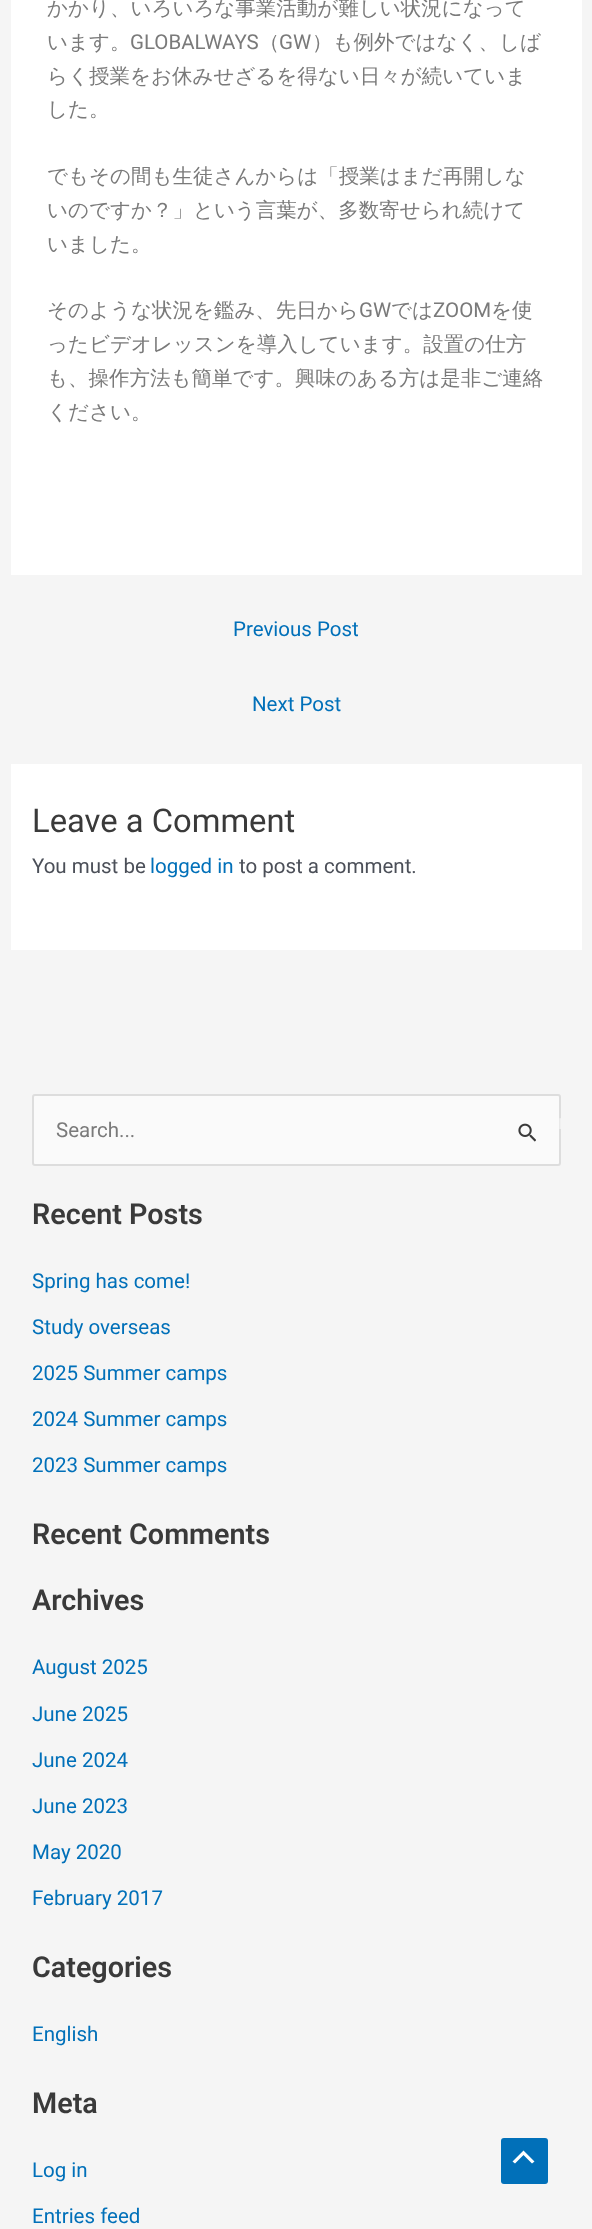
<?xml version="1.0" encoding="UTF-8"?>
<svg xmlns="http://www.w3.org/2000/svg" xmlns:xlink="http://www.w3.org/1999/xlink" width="592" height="2229">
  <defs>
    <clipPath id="clip1"><rect x="494" y="1094" width="67" height="58" rx="3" /></clipPath>
  </defs>
  <rect width="100%" height="100%" fill="#f5f5f5" />
  <rect x="11" width="571" height="575" fill="#ffffff" />
  <rect x="11" y="764" width="571" height="186" fill="#ffffff" />
  <rect x="33" y="1095" width="527" height="70" rx="2" fill="#fafafa" stroke="#dddddd" stroke-width="2" />
  <image x="518" y="1123" width="18" height="19" xlink:href="image1.png" />
  <rect x="501" y="2138" width="47" height="46" rx="3" fill="#0170b9" />
  <path d="M 534.5 2161.5 l -11 -11 l -11 11 l 2.5 2 l 8.5 -8.5 l 8.5 8.5 z" fill="#ffffff" />
  <text x="47" y="15" style="font-family: WenQuanYi Zen Hei; font-size: 20.5px; font-weight: 500; fill: #7a7a7a">かかり、いろいろな事業活動が難しい状況になって</text>
  <text x="47" y="49" style="font-family: WenQuanYi Zen Hei; font-size: 20.5px; font-weight: 500; fill: #7a7a7a">います。</text>
  <text x="130" y="49" style="font-family: Roboto; font-size: 20.5px; fill: #7a7a7a">GLOBALWAYS</text>
  <text x="259" y="49" style="font-family: WenQuanYi Zen Hei; font-size: 20.5px; font-weight: 500; fill: #7a7a7a">（</text>
  <text x="279" y="49" style="font-family: Roboto; font-size: 20.5px; fill: #7a7a7a">GW</text>
  <text x="312" y="49" style="font-family: WenQuanYi Zen Hei; font-size: 20.5px; font-weight: 500; fill: #7a7a7a">）も例外ではなく、しば</text>
  <text x="47" y="83" style="font-family: WenQuanYi Zen Hei; font-size: 20.5px; font-weight: 500; fill: #7a7a7a">らく授業をお休みせざるを得ない日々が続いていま</text>
  <text x="47" y="116" style="font-family: WenQuanYi Zen Hei; font-size: 20.5px; font-weight: 500; fill: #7a7a7a">した。</text>
  <text x="47" y="183" style="font-family: WenQuanYi Zen Hei; font-size: 20.5px; font-weight: 500; fill: #7a7a7a">でもその間も生徒さんからは「授業はまだ再開しな</text>
  <text x="47" y="217" style="font-family: WenQuanYi Zen Hei; font-size: 20.5px; font-weight: 500; fill: #7a7a7a">いのですか？」という言葉が、多数寄せられ続けて</text>
  <text x="47" y="251" style="font-family: WenQuanYi Zen Hei; font-size: 20.5px; font-weight: 500; fill: #7a7a7a">いました。</text>
  <text x="47" y="317" style="font-family: WenQuanYi Zen Hei; font-size: 20.5px; font-weight: 500; fill: #7a7a7a">そのような状況を鑑み、先日から</text>
  <text x="359" y="317" style="font-family: Roboto; font-size: 20.5px; fill: #7a7a7a">GW</text>
  <text x="391" y="317" style="font-family: WenQuanYi Zen Hei; font-size: 20.5px; font-weight: 500; fill: #7a7a7a">では</text>
  <text x="433" y="317" style="font-family: Roboto; font-size: 20.5px; fill: #7a7a7a">ZOOM</text>
  <text x="491" y="317" style="font-family: WenQuanYi Zen Hei; font-size: 20.5px; font-weight: 500; fill: #7a7a7a">を使</text>
  <text x="47" y="351" style="font-family: WenQuanYi Zen Hei; font-size: 20.5px; font-weight: 500; fill: #7a7a7a">ったビデオレッスンを導入しています。設置の仕方</text>
  <text x="47" y="385" style="font-family: WenQuanYi Zen Hei; font-size: 20.5px; font-weight: 500; fill: #7a7a7a">も、操作方法も簡単です。興味のある方は是非ご連絡</text>
  <text x="47" y="419" style="font-family: WenQuanYi Zen Hei; font-size: 20.5px; font-weight: 500; fill: #7a7a7a">ください。</text>
  <text x="233" y="636" style="font-family: Roboto; font-size: 20.5px; fill: #0170b9">Previous Post</text>
  <text x="252" y="711" style="font-family: Roboto; font-size: 20.5px; fill: #0170b9">Next Post</text>
  <text x="32" y="832" style="font-family: Roboto; font-size: 32.75px; fill: #3a3a3a">Leave a Comment</text>
  <text x="32" y="873" style="font-family: Roboto; font-size: 20.5px; fill: #4b4f58">You must be</text>
  <text x="150" y="873" style="font-family: Roboto; font-size: 20.5px; fill: #0170b9">logged in</text>
  <text x="239" y="873" style="font-family: Roboto; font-size: 20.5px; fill: #4b4f58">to post a comment.</text>
  <text x="56" y="1137" style="font-family: Roboto; font-size: 20.5px; fill: #7a7a7a">Search...</text>
  <g clip-path="url(#clip1)">
    <text x="558" y="1129" style="font-family: Roboto; font-size: 20.5px; fill: #f0f0f0">r</text>
  </g>
  <text x="32" y="1224" style="font-family: Roboto; font-size: 28.75px; font-weight: 600; fill: #3a3a3a">Recent Posts</text>
  <text x="32" y="1288" style="font-family: Roboto; font-size: 20.5px; fill: #0170b9">Spring has come!</text>
  <text x="32" y="1334" style="font-family: Roboto; font-size: 20.5px; fill: #0170b9">Study overseas</text>
  <text x="32" y="1380" style="font-family: Roboto; font-size: 20.5px; fill: #0170b9">2025 Summer camps</text>
  <text x="32" y="1426" style="font-family: Roboto; font-size: 20.5px; fill: #0170b9">2024 Summer camps</text>
  <text x="32" y="1472" style="font-family: Roboto; font-size: 20.5px; fill: #0170b9">2023 Summer camps</text>
  <text x="32" y="1544" style="font-family: Roboto; font-size: 28.75px; font-weight: 600; fill: #3a3a3a">Recent Comments</text>
  <text x="32" y="1610" style="font-family: Roboto; font-size: 28.75px; font-weight: 600; fill: #3a3a3a">Archives</text>
  <text x="32" y="1674" style="font-family: Roboto; font-size: 20.5px; fill: #0170b9">August 2025</text>
  <text x="32" y="1721" style="font-family: Roboto; font-size: 20.5px; fill: #0170b9">June 2025</text>
  <text x="32" y="1767" style="font-family: Roboto; font-size: 20.5px; fill: #0170b9">June 2024</text>
  <text x="32" y="1813" style="font-family: Roboto; font-size: 20.5px; fill: #0170b9">June 2023</text>
  <text x="32" y="1859" style="font-family: Roboto; font-size: 20.5px; fill: #0170b9">May 2020</text>
  <text x="32" y="1905" style="font-family: Roboto; font-size: 20.5px; fill: #0170b9">February 2017</text>
  <text x="32" y="1977" style="font-family: Roboto; font-size: 28.75px; font-weight: 600; fill: #3a3a3a">Categories</text>
  <text x="32" y="2041" style="font-family: Roboto; font-size: 20.5px; fill: #0170b9">English</text>
  <text x="32" y="2113" style="font-family: Roboto; font-size: 28.75px; font-weight: 600; fill: #3a3a3a">Meta</text>
  <text x="32" y="2177" style="font-family: Roboto; font-size: 20.5px; fill: #0170b9">Log in</text>
  <text x="32" y="2223" style="font-family: Roboto; font-size: 20.5px; fill: #0170b9">Entries feed</text>
</svg>
